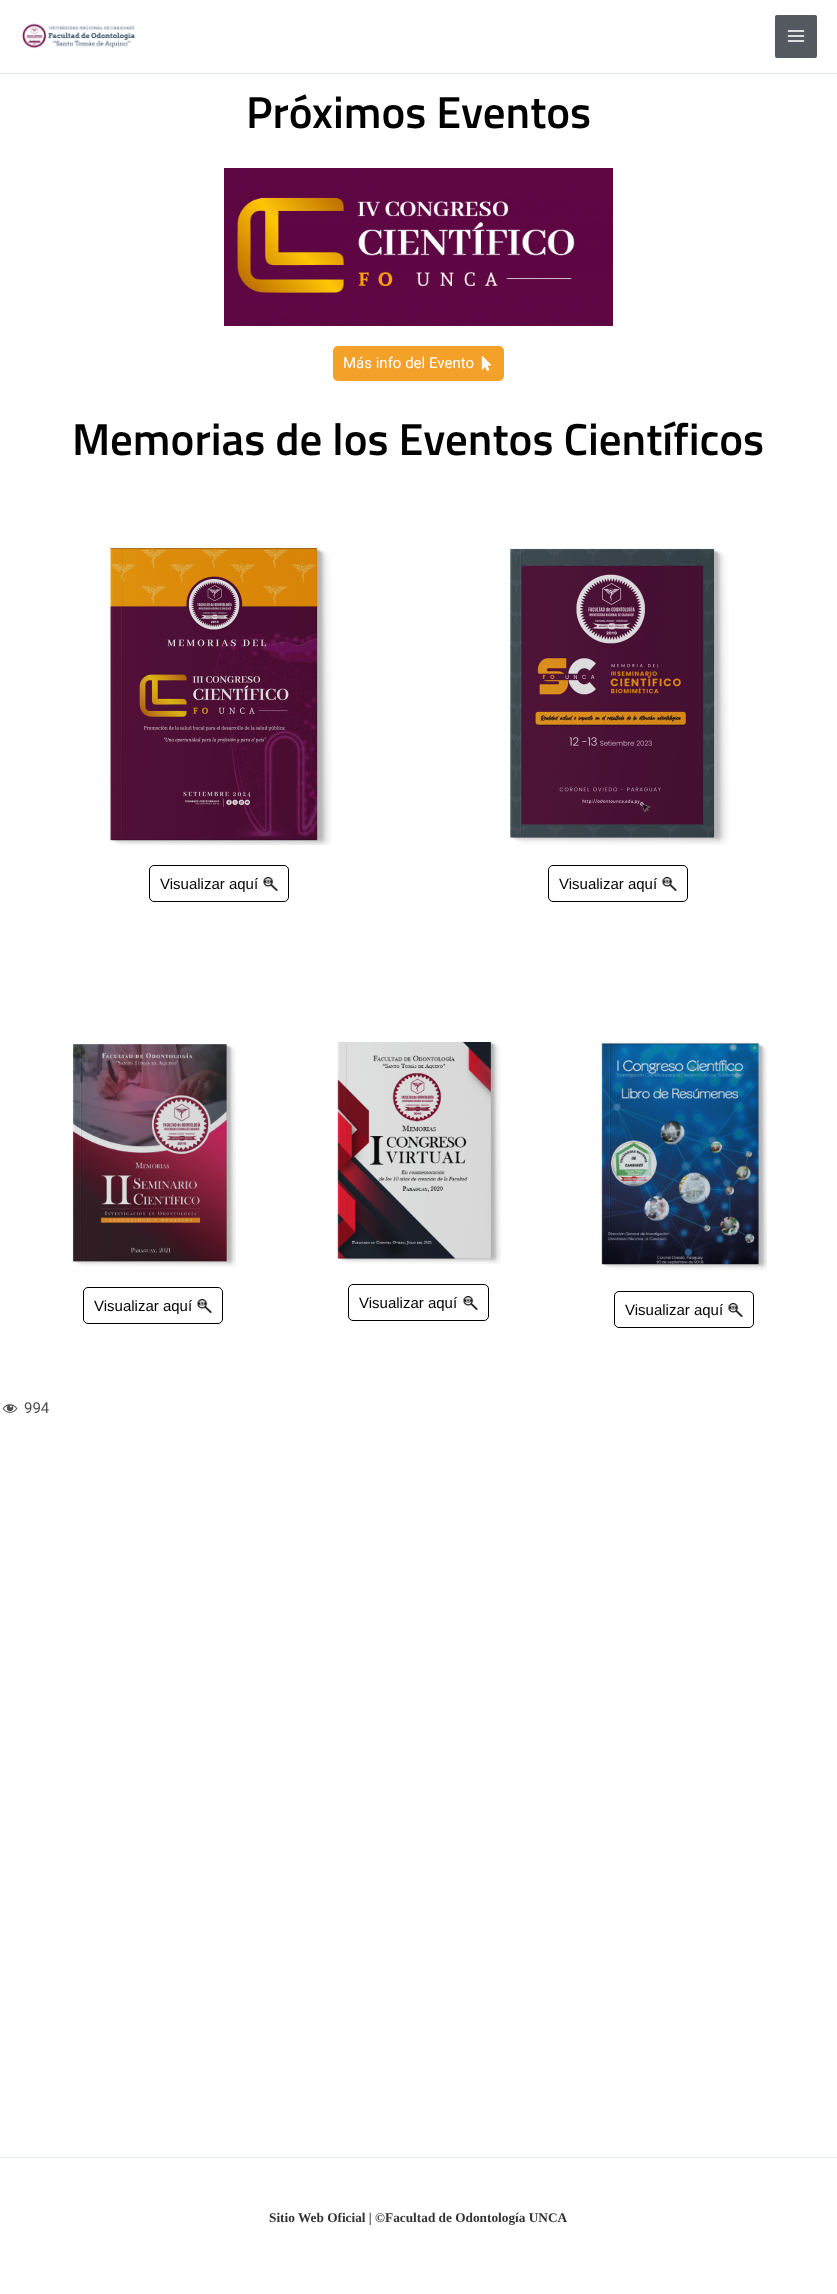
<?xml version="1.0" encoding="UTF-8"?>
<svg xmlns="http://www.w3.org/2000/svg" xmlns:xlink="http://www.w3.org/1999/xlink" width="837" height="2294">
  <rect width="100%" height="100%" fill="#ffffff" />
  <rect y="73" width="837" height="1" fill="#e2e8f0" />
  <image x="22" y="23" width="114" height="26" xlink:href="image1.png" />
  <rect x="775" y="15" width="42" height="43" rx="2" fill="#54595f" />
  <image x="787" y="30" width="18" height="12" xlink:href="image2.png" />
  <image x="224" y="168" width="389" height="158" xlink:href="image3.png" />
  <rect x="333" y="346" width="171" height="35" rx="5" fill="#f3a128" />
  <image x="481" y="356" width="11" height="15" xlink:href="image4.png" />
  <image x="110" y="548" width="222" height="297" xlink:href="image5.png" />
  <rect x="149.5" y="865.5" width="139" height="36" rx="4.5" fill="none" stroke="#000000" />
  <image x="263" y="877" width="15" height="14" xlink:href="image6.png" />
  <image x="510" y="548" width="219" height="297" xlink:href="image7.png" />
  <rect x="548.5" y="865.5" width="139" height="36" rx="4.5" fill="none" stroke="#000000" />
  <image x="662" y="877" width="15" height="14" xlink:href="image6.png" />
  <image x="72" y="1044" width="164" height="223" xlink:href="image8.png" />
  <rect x="83.5" y="1287.5" width="139" height="36" rx="4.5" fill="none" stroke="#000000" />
  <image x="197" y="1299" width="15" height="14" xlink:href="image6.png" />
  <image x="337" y="1042" width="164" height="222" xlink:href="image9.png" />
  <rect x="348.5" y="1284.5" width="140" height="36" rx="4.5" fill="none" stroke="#000000" />
  <image x="463" y="1296" width="15" height="14" xlink:href="image6.png" />
  <image x="601" y="1042" width="166" height="229" xlink:href="image10.png" />
  <rect x="614.5" y="1291.5" width="139" height="36" rx="4.5" fill="none" stroke="#000000" />
  <image x="728" y="1303" width="15" height="14" xlink:href="image6.png" />
  <image x="2" y="1404" width="16" height="9" xlink:href="image11.png" />
  <rect y="2157" width="837" height="1" fill="#e2e8f0" />
  <text x="246" y="128" style="font-family: Titillium Web; font-size: 45px; font-weight: 600; fill: #000000">Próximos Eventos</text>
  <text x="343" y="368" style="font-family: Roboto; font-size: 15px; fill: #ffffff">Más info del Evento</text>
  <text x="72" y="455" style="font-family: Titillium Web; font-size: 45px; font-weight: 600; fill: #000000">Memorias de los Eventos Científicos</text>
  <text x="160" y="889" style="font-family: Liberation Sans; font-size: 15px; fill: #000000">Visualizar aquí</text>
  <text x="559" y="889" style="font-family: Liberation Sans; font-size: 15px; fill: #000000">Visualizar aquí</text>
  <text x="94" y="1311" style="font-family: Liberation Sans; font-size: 15px; fill: #000000">Visualizar aquí</text>
  <text x="359" y="1308" style="font-family: Liberation Sans; font-size: 15px; fill: #000000">Visualizar aquí</text>
  <text x="625" y="1315" style="font-family: Liberation Sans; font-size: 15px; fill: #000000">Visualizar aquí</text>
  <text x="24" y="1413" style="font-family: Roboto; font-size: 15px; fill: #4e4e4e">994</text>
  <text x="269" y="2222" style="font-family: Liberation Serif; font-size: 13.3px; font-weight: bold; fill: #333333">Sitio Web Oficial | ©Facultad de Odontología UNCA</text>
</svg>
